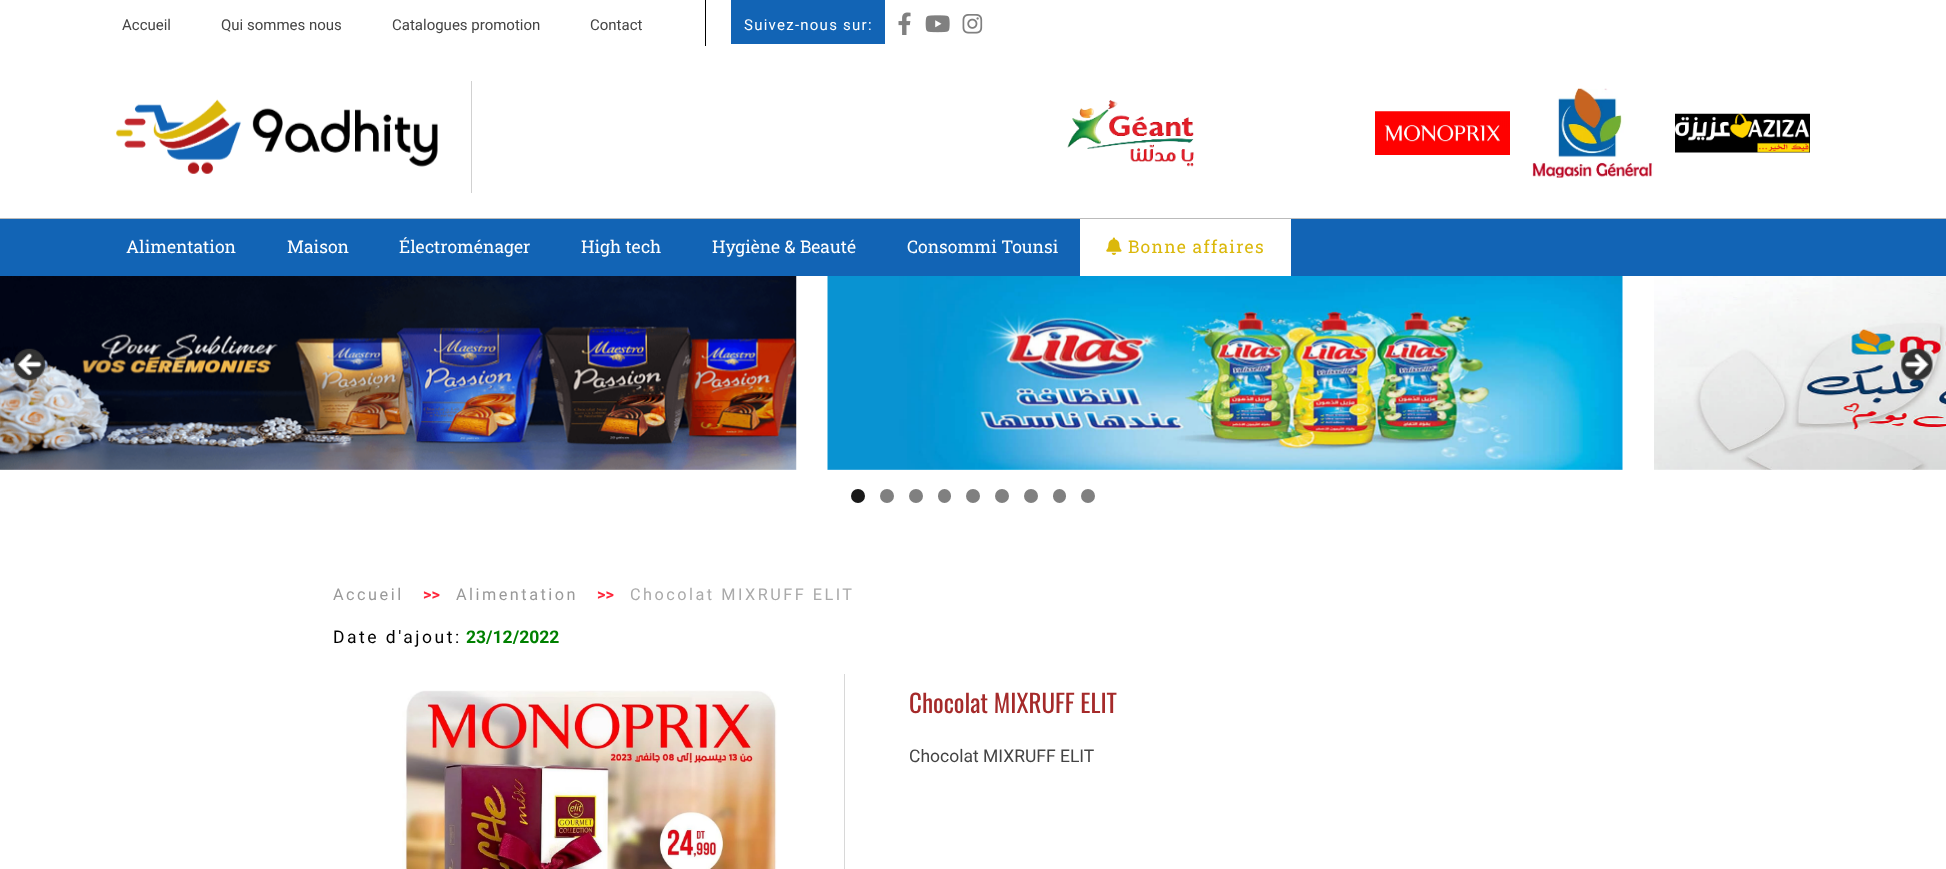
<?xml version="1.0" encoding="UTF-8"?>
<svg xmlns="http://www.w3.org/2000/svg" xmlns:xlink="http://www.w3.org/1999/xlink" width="1946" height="869">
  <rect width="100%" height="100%" fill="#ffffff" />
  <rect x="705" width="1" height="46" fill="#000000" />
  <rect x="731" width="154" height="44" fill="#1264b5" />
  <image x="898" y="12" width="13" height="23" xlink:href="image1.png" />
  <image x="925" y="15" width="25" height="18" xlink:href="image2.png" />
  <image x="962" y="14" width="21" height="20" xlink:href="image3.png" />
  <rect x="471" y="81" width="1" height="112" fill="#d1d1d1" />
  <image x="116" y="99" width="322" height="75" xlink:href="image4.png" />
  <image x="1067" y="100" width="127" height="67" xlink:href="image5.png" />
  <image x="1375" y="111" width="135" height="44" xlink:href="image6.png" />
  <image x="1532" y="88" width="122" height="90" xlink:href="image7.png" />
  <image x="1675" y="113" width="135" height="40" xlink:href="image8.png" />
  <rect y="219" width="1946" height="57" fill="#1264b5" />
  <rect y="218" width="1946" height="1" fill="#bbbbbb" />
  <rect x="1080" y="219" width="211" height="57" fill="#ffffff" />
  <image x="1106" y="237" width="16" height="18" xlink:href="image9.png" />
  <image x="0" y="276" width="797" height="194" xlink:href="image10.png" />
  <image x="827" y="276" width="796" height="194" xlink:href="image11.png" />
  <image x="1654" y="276" width="292" height="194" xlink:href="image12.png" />
  <image x="13" y="348" width="33" height="33" xlink:href="image13.png" />
  <image x="1901" y="348" width="32" height="33" xlink:href="image14.png" />
  <circle cx="858" cy="496" r="7" fill="#1a1a1a" />
  <circle cx="887" cy="496" r="7" fill="#808080" />
  <circle cx="916" cy="496" r="7" fill="#808080" />
  <rect x="938" y="489" width="13" height="14" rx="6.5" fill="#808080" />
  <circle cx="973" cy="496" r="7" fill="#808080" />
  <circle cx="1002" cy="496" r="7" fill="#808080" />
  <circle cx="1031" cy="496" r="7" fill="#808080" />
  <rect x="1053" y="489" width="13" height="14" rx="6.5" fill="#808080" />
  <circle cx="1088" cy="496" r="7" fill="#808080" />
  <rect x="844" y="674" width="1" height="195" fill="#d8d8d8" />
  <image x="402" y="690" width="375" height="179" xlink:href="image15.png" />
  <text x="122" y="30" style="font-family: Roboto; font-size: 15px; fill: #444444">Accueil</text>
  <text x="221" y="30" style="font-family: Roboto; font-size: 15px; fill: #444444">Qui sommes nous</text>
  <text x="392" y="30" style="font-family: Roboto; font-size: 15px; fill: #444444">Catalogues promotion</text>
  <text x="590" y="30" style="font-family: Roboto; font-size: 15px; fill: #444444">Contact</text>
  <text x="744" y="30" style="font-family: Roboto; font-size: 15px; letter-spacing: 1.25px; fill: #ffffff">Suivez-nous sur:</text>
  <text x="126" y="253" style="font-family: Roboto Slab; font-size: 17.5px; fill: #ffffff">Alimentation</text>
  <text x="287" y="253" style="font-family: Roboto Slab; font-size: 17.5px; fill: #ffffff">Maison</text>
  <text x="399" y="253" style="font-family: Roboto Slab; font-size: 17.5px; fill: #ffffff">Électroménager</text>
  <text x="581" y="253" style="font-family: Roboto Slab; font-size: 17.5px; fill: #ffffff">High tech</text>
  <text x="712" y="253" style="font-family: Roboto Slab; font-size: 17.5px; fill: #ffffff">Hygiène &amp; Beauté</text>
  <text x="907" y="253" style="font-family: Roboto Slab; font-size: 17.5px; fill: #ffffff">Consommi Tounsi</text>
  <text x="1128" y="253" style="font-family: Roboto Slab; font-size: 17.5px; letter-spacing: 1.25px; fill: #dbb80b">Bonne affaires</text>
  <text x="333" y="600" style="font-family: Roboto; font-size: 16.25px; letter-spacing: 2.5px; fill: #999999">Accueil</text>
  <text x="423" y="600" style="font-family: Roboto; font-size: 16.25px; font-weight: bold; fill: #ff253a">&gt;&gt;</text>
  <text x="456" y="600" style="font-family: Roboto; font-size: 16.25px; letter-spacing: 2.5px; fill: #999999">Alimentation</text>
  <text x="597" y="600" style="font-family: Roboto; font-size: 16.25px; font-weight: bold; fill: #ff253a">&gt;&gt;</text>
  <text x="630" y="600" style="font-family: Roboto; font-size: 16.25px; letter-spacing: 2.5px; fill: #aaaaaa">Chocolat MIXRUFF ELIT</text>
  <text x="333" y="643" style="font-family: Roboto; font-size: 17.5px; letter-spacing: 2.5px; fill: #000000">Date d'ajout:</text>
  <text x="466" y="643" style="font-family: Roboto; font-size: 17.5px; font-weight: bold; fill: #008000">23/12/2022</text>
  <text x="909" y="713" style="font-family: Oswald; font-size: 25px; fill: #a52a2a">Chocolat MIXRUFF ELIT</text>
  <text x="909" y="762" style="font-family: Roboto; font-size: 17.5px; fill: #444444">Chocolat MIXRUFF ELIT</text>
</svg>
